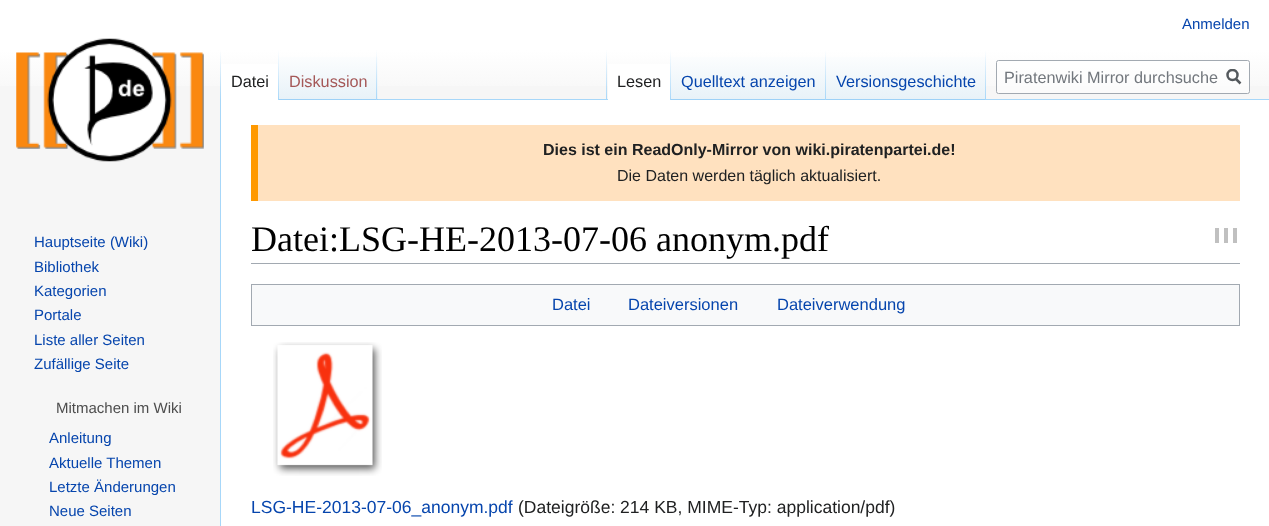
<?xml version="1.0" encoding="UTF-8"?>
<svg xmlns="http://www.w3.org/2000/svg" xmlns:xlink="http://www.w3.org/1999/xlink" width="1269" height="526">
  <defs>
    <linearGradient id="g1" gradientUnits="userSpaceOnUse" x1="635" y1="0" x2="635" y2="100"><stop offset="0.5" stop-color="#ffffff" /><stop offset="1" stop-color="#f6f6f6" /></linearGradient>
    <linearGradient id="g2" gradientUnits="userSpaceOnUse" x1="221" y1="50" x2="221" y2="100"><stop offset="0" stop-color="#a7d7f9" stop-opacity="0" /><stop offset="1" stop-color="#a7d7f9" /></linearGradient>
    <linearGradient id="g3" gradientUnits="userSpaceOnUse" x1="278" y1="50" x2="278" y2="100"><stop offset="0" stop-color="#ffffff" /><stop offset="1" stop-color="#a7d7f9" /></linearGradient>
    <linearGradient id="g4" gradientUnits="userSpaceOnUse" x1="328" y1="100" x2="328" y2="50"><stop offset="0" stop-color="#77c1f6" /><stop offset="0.03" stop-color="#e8f2f8" /><stop offset="1" stop-color="#ffffff" /></linearGradient>
    <linearGradient id="g5" gradientUnits="userSpaceOnUse" x1="377" y1="50" x2="377" y2="100"><stop offset="0" stop-color="#a7d7f9" stop-opacity="0" /><stop offset="1" stop-color="#a7d7f9" /></linearGradient>
    <linearGradient id="g6" gradientUnits="userSpaceOnUse" x1="607" y1="50" x2="607" y2="100"><stop offset="0" stop-color="#a7d7f9" stop-opacity="0" /><stop offset="1" stop-color="#a7d7f9" /></linearGradient>
    <linearGradient id="g7" gradientUnits="userSpaceOnUse" x1="671" y1="50" x2="671" y2="100"><stop offset="0" stop-color="#ffffff" /><stop offset="1" stop-color="#a7d7f9" /></linearGradient>
    <linearGradient id="g8" gradientUnits="userSpaceOnUse" x1="749" y1="100" x2="749" y2="50"><stop offset="0" stop-color="#77c1f6" /><stop offset="0.03" stop-color="#e8f2f8" /><stop offset="1" stop-color="#ffffff" /></linearGradient>
    <linearGradient id="g9" gradientUnits="userSpaceOnUse" x1="826" y1="50" x2="826" y2="100"><stop offset="0" stop-color="#a7d7f9" stop-opacity="0" /><stop offset="1" stop-color="#a7d7f9" /></linearGradient>
    <linearGradient id="g10" gradientUnits="userSpaceOnUse" x1="906" y1="100" x2="906" y2="50"><stop offset="0" stop-color="#77c1f6" /><stop offset="0.03" stop-color="#e8f2f8" /><stop offset="1" stop-color="#ffffff" /></linearGradient>
    <linearGradient id="g11" gradientUnits="userSpaceOnUse" x1="986" y1="50" x2="986" y2="100"><stop offset="0" stop-color="#a7d7f9" stop-opacity="0" /><stop offset="1" stop-color="#a7d7f9" /></linearGradient>
    <clipPath id="clip1"><rect x="1226" y="69" width="15" height="16" /></clipPath>
  </defs>
  <rect width="100%" height="100%" fill="#f6f6f6" />
  <rect width="1269" height="86" fill="url(#g1)" />
  <rect x="220" y="99" width="1" height="427" fill="#a7d7f9" />
  <rect x="220" y="50" width="1" height="50" fill="url(#g2)" />
  <rect x="221" y="64" width="57" height="36" fill="#ffffff" />
  <rect x="278" y="50" width="1" height="50" fill="url(#g3)" />
  <rect x="279" y="57" width="99" height="43" fill="url(#g4)" />
  <rect x="376" y="50" width="1" height="50" fill="url(#g5)" />
  <rect x="378" y="99" width="891" height="1" fill="#a7d7f9" />
  <rect x="606" y="50" width="1" height="50" fill="url(#g6)" />
  <rect x="608" y="64" width="62" height="36" fill="#ffffff" />
  <rect x="670" y="50" width="1" height="50" fill="url(#g7)" />
  <rect x="671" y="57" width="155" height="43" fill="url(#g8)" />
  <rect x="825" y="50" width="1" height="50" fill="url(#g9)" />
  <rect x="826" y="57" width="160" height="43" fill="url(#g10)" />
  <rect x="985" y="50" width="1" height="50" fill="url(#g11)" />
  <rect x="996.5" y="60.5" width="253" height="33" rx="2" fill="#ffffff" fill-opacity="0.5" stroke="#a2a9b1" />
  <path d="M 1240.5 83.5 l -5 -5" fill="none" stroke="#54595d" stroke-width="2.5" />
  <g clip-path="url(#clip1)">
    <circle cx="1232.5" cy="75" r="5" fill="none" stroke="#54595d" stroke-width="2.5" />
  </g>
  <image x="16" y="38" width="188" height="124" xlink:href="image1.png" />
  <path d="M 116 408 v 0.5 l -0.5 -0.5 z" fill="#797979" />
  <rect x="221" y="100" width="1048" height="426" fill="#ffffff" />
  <rect x="258" y="125" width="982" height="76" fill="#ffe1bf" />
  <rect x="251" y="125" width="7" height="76" fill="#ff9900" />
  <rect x="251" y="263" width="989" height="1" fill="#a2a9b1" />
  <rect x="1224" y="228" width="4" height="15" fill="#c0c0c0" />
  <rect x="1215" y="228" width="4" height="15" fill="#c0c0c0" />
  <rect x="1233" y="228" width="4" height="15" fill="#c0c0c0" />
  <rect x="251.5" y="284.5" width="988" height="41" fill="#f8f9fa" stroke="#a2a9b1" />
  <image x="273" y="342" width="109" height="134" xlink:href="image2.png" />
  <text x="1182" y="29" style="font-family: Liberation Sans; font-size: 15px; fill: #0645ad">Anmelden</text>
  <text x="231" y="87" style="font-family: Liberation Sans; font-size: 16.25px; fill: #202122">Datei</text>
  <text x="289" y="87" style="font-family: Liberation Sans; font-size: 16.25px; fill: #a55858">Diskussion</text>
  <text x="617" y="87" style="font-family: Liberation Sans; font-size: 16.25px; fill: #202122">Lesen</text>
  <text x="681" y="87" style="font-family: Liberation Sans; font-size: 16.25px; fill: #0645ad">Quelltext anzeigen</text>
  <text x="836" y="87" style="font-family: Liberation Sans; font-size: 16.25px; fill: #0645ad">Versionsgeschichte</text>
  <text x="1004" y="83" style="font-family: Liberation Sans; font-size: 16.25px; fill: #72777d">Piratenwiki Mirror durchsuche</text>
  <text x="34" y="247" style="font-family: Liberation Sans; font-size: 15px; fill: #0645ad">Hauptseite (Wiki)</text>
  <text x="34" y="272" style="font-family: Liberation Sans; font-size: 15px; fill: #0645ad">Bibliothek</text>
  <text x="34" y="296" style="font-family: Liberation Sans; font-size: 15px; fill: #0645ad">Kategorien</text>
  <text x="34" y="320" style="font-family: Liberation Sans; font-size: 15px; fill: #0645ad">Portale</text>
  <text x="34" y="345" style="font-family: Liberation Sans; font-size: 15px; fill: #0645ad">Liste aller Seiten</text>
  <text x="34" y="369" style="font-family: Liberation Sans; font-size: 15px; fill: #0645ad">Zufällige Seite</text>
  <text x="56" y="413" style="font-family: Liberation Sans; font-size: 15px; fill: #4d4d4d">Mitmachen im Wiki</text>
  <text x="49" y="443" style="font-family: Liberation Sans; font-size: 15px; fill: #0645ad">Anleitung</text>
  <text x="49" y="468" style="font-family: Liberation Sans; font-size: 15px; fill: #0645ad">Aktuelle Themen</text>
  <text x="49" y="492" style="font-family: Liberation Sans; font-size: 15px; fill: #0645ad">Letzte Änderungen</text>
  <text x="49" y="516" style="font-family: Liberation Sans; font-size: 15px; fill: #0645ad">Neue Seiten</text>
  <text x="543" y="155" style="font-family: Liberation Sans; font-size: 16px; font-weight: bold; fill: #202122">Dies ist ein ReadOnly-Mirror von wiki.piratenpartei.de!</text>
  <text x="617" y="181" style="font-family: Liberation Sans; font-size: 16px; fill: #202122">Die Daten werden täglich aktualisiert.</text>
  <text x="251" y="251" style="font-family: Liberation Serif; font-size: 36px; fill: #000000">Datei:LSG-HE-2013-07-06 anonym.pdf</text>
  <text x="552" y="310" style="font-family: Liberation Sans; font-size: 16.5px; fill: #0645ad">Datei</text>
  <text x="628" y="310" style="font-family: Liberation Sans; font-size: 16.5px; fill: #0645ad">Dateiversionen</text>
  <text x="777" y="310" style="font-family: Liberation Sans; font-size: 16.5px; fill: #0645ad">Dateiverwendung</text>
  <text x="251" y="513" style="font-family: Liberation Sans; font-size: 17.5px; fill: #0645ad">LSG-HE-2013-07-06_anonym.pdf</text>
  <text x="518" y="513" style="font-family: Liberation Sans; font-size: 17.5px; fill: #202122">(Dateigröße: 214 KB, MIME-Typ: application/pdf)</text>
</svg>
